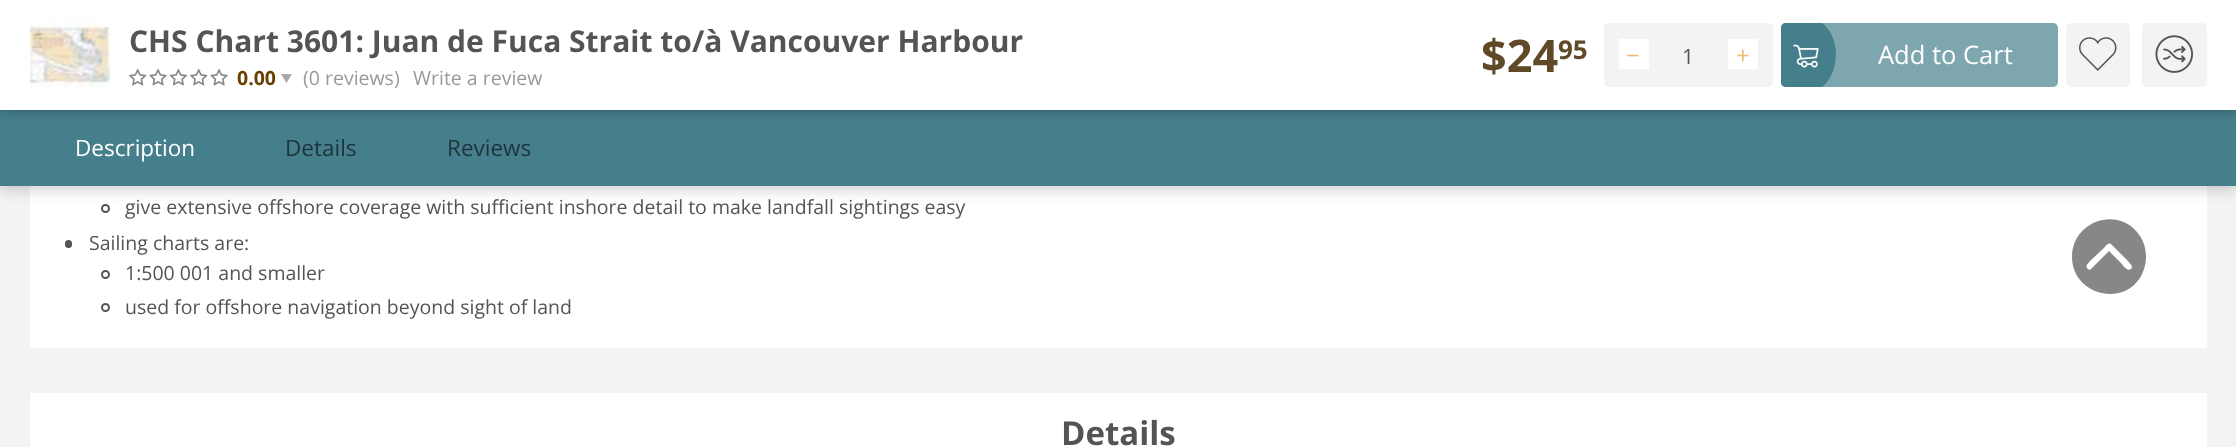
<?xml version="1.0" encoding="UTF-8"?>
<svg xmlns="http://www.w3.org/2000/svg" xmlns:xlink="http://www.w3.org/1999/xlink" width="2236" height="447">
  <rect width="100%" height="100%" fill="#f3f3f3" />
  <rect x="30" y="186" width="2177" height="162" fill="#ffffff" />
  <circle cx="105.5" cy="208.5" r="3.5" fill="none" stroke="#545453" stroke-width="2" />
  <rect y="113" width="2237" height="76" fill="#000000" fill-opacity="0.2" filter="blur(7.5px)" />
  <rect y="110" width="2236" height="76" fill="#467f8c" />
  <rect y="-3" width="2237" height="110" fill="#000000" fill-opacity="0.5" filter="blur(7.5px)" />
  <rect width="2236" height="110" fill="#ffffff" />
  <image x="30" y="15" width="80" height="73" xlink:href="image1.png" />
  <image x="129" y="69" width="99" height="17" xlink:href="image2.png" />
  <path d="M 292 74 l -5.5 9 l -5.5 -9 z" fill="#aaaaaa" />
  <rect x="1604" y="23" width="169" height="64" rx="5" fill="#f3f3f3" />
  <rect x="1619" y="39" width="30" height="30" fill="#ffffff" />
  <rect x="1728" y="39" width="30" height="30" fill="#ffffff" />
  <rect x="1781" y="23" width="277" height="64" rx="5" fill="#7ea6af" />
  <path d="M 1786 23 h 36 c 19 14 18 50 0 64 h -36 c -3 0 -5 -2 -5 -5 v -54 c 0 -3 2 -5 5 -5 z" fill="#467f8c" />
  <image x="1793" y="44" width="26" height="24" xlink:href="image3.png" />
  <rect x="2066" y="23" width="64" height="64" rx="5" fill="#f3f3f3" />
  <image x="2079" y="37" width="38" height="34" xlink:href="image4.png" />
  <rect x="2142" y="23" width="65" height="64" rx="5" fill="#f3f3f3" />
  <image x="2155" y="35" width="38" height="38" xlink:href="image5.png" />
  <rect x="65" y="240" width="7" height="8" rx="3.5" fill="#545453" />
  <circle cx="105.5" cy="274.5" r="3.5" fill="none" stroke="#545453" stroke-width="2" />
  <circle cx="105.5" cy="307.5" r="3.5" fill="none" stroke="#545453" stroke-width="2" />
  <rect x="30" y="393" width="2177" height="54" fill="#ffffff" />
  <path d="M 2146 257 c 0 -8 -2 -15 -6 -21 c -20 -31 -68 -16 -68 21 c 0 36 48 51 68 21 c 4 -7 6 -14 6 -21 z m -55 12 c -1 1 -3 1 -4 -1 c -2 -3 2 -5 3 -7 l 14 -13 c 1 -1 4 -6 7 -4 l 17 17 c 1 2 6 5 3 8 c -4 3 -9 -5 -10 -6 l -12 -12 z" fill="#878787" />
  <text x="129" y="52" style="font-family: Open Sans; font-size: 30px; font-weight: bold; fill: #545453">CHS Chart 3601: Juan de Fuca Strait to/à Vancouver Harbour</text>
  <text x="237" y="85" style="font-family: Open Sans; font-size: 19.5px; font-weight: bold; fill: #693e00">0.00</text>
  <text x="303" y="85" style="font-family: Open Sans; font-size: 19.5px; fill: #999999">(0 reviews)</text>
  <text x="413" y="85" style="font-family: Open Sans; font-size: 19.5px; fill: #999999">Write a review</text>
  <text x="1481" y="72" style="font-family: Open Sans; font-size: 45px; font-weight: bold; fill: #5f4926">$24</text>
  <text x="1558" y="59" style="font-family: Open Sans; font-size: 26px; font-weight: bold; fill: #5f4926">95</text>
  <text x="1626" y="64" style="font-family: Open Sans; font-size: 24px; fill: #f0bc6f">−</text>
  <text x="1682" y="64" style="font-family: Open Sans; font-size: 21px; fill: #545453">1</text>
  <text x="1736" y="64" style="font-family: Open Sans; font-size: 24px; fill: #f0bc6f">+</text>
  <text x="1878" y="64" style="font-family: Open Sans; font-size: 25.5px; fill: #ffffff">Add to Cart</text>
  <text x="75" y="156" style="font-family: Open Sans; font-size: 22.5px; fill: #ffffff">Description</text>
  <text x="285" y="156" style="font-family: Open Sans; font-size: 22.5px; fill: #1d343a">Details</text>
  <text x="447" y="156" style="font-family: Open Sans; font-size: 22.5px; fill: #1d343a">Reviews</text>
  <text x="125" y="214" style="font-family: Open Sans; font-size: 19.5px; fill: #545453">give extensive offshore coverage with sufficient inshore detail to make landfall sightings easy</text>
  <text x="89" y="250" style="font-family: Open Sans; font-size: 19.5px; fill: #545453">Sailing charts are:</text>
  <text x="125" y="280" style="font-family: Open Sans; font-size: 19.5px; fill: #545453">1:500 001 and smaller</text>
  <text x="125" y="314" style="font-family: Open Sans; font-size: 19.5px; fill: #545453">used for offshore navigation beyond sight of land</text>
  <text x="1061" y="445" style="font-family: Open Sans; font-size: 33px; font-weight: bold; fill: #545453">Details</text>
</svg>
